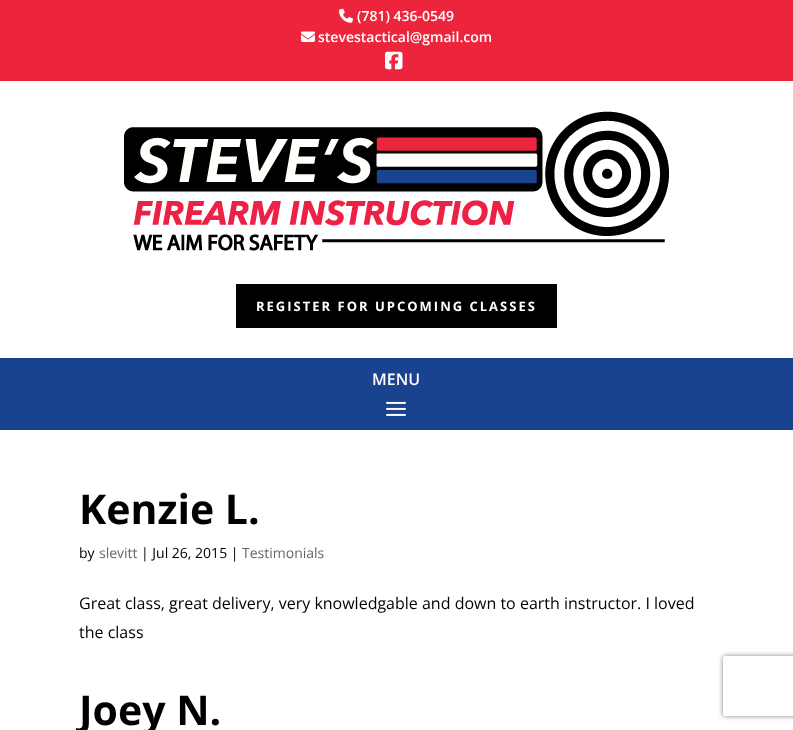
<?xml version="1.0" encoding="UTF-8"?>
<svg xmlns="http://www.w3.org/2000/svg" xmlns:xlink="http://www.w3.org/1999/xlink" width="793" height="730">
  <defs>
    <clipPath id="clip1"><path d="M 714 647 h 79 v 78 h -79 z m 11 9 h 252 c 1 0 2 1 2 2 v 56 c 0 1 -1 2 -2 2 h -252 c -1 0 -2 -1 -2 -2 v -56 c 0 -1 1 -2 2 -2 z" clip-rule="evenodd" /></clipPath>
  </defs>
  <rect width="100%" height="100%" fill="#ffffff" />
  <rect width="793" height="81" fill="#ed253c" />
  <image x="339" y="8" width="14" height="15" xlink:href="image1.png" />
  <image x="301" y="31" width="14" height="11" xlink:href="image2.png" />
  <image x="385" y="51" width="18" height="19" xlink:href="image3.png" />
  <image x="124" y="111" width="545" height="140" xlink:href="image4.png" />
  <rect x="236" y="284" width="321" height="44" fill="#000000" />
  <rect y="358" width="793" height="72" fill="#19428f" />
  <image x="386" y="401" width="20" height="15" xlink:href="image5.png" />
  <g clip-path="url(#clip1)">
    <rect x="723" y="656" width="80" height="60" rx="2" fill="#808080" filter="blur(2.5px)" />
  </g>
  <text x="357" y="21" style="font-family: Open Sans; font-size: 14px; font-weight: 600; fill: #ffffff">(781) 436-0549</text>
  <text x="318" y="42" style="font-family: Open Sans; font-size: 14px; font-weight: 600; fill: #ffffff">stevestactical@gmail.com</text>
  <text x="256" y="311" style="font-family: Open Sans; font-size: 13px; font-weight: bold; letter-spacing: 2px; fill: #ffffff">REGISTER FOR UPCOMING CLASSES</text>
  <text x="372" y="385" style="font-family: Open Sans; font-size: 16px; font-weight: 600; fill: #ffffff">MENU</text>
  <text x="79" y="524" style="font-family: Open Sans; font-size: 41px; font-weight: bold; fill: #000000">Kenzie L.</text>
  <text x="79" y="558" style="font-family: Open Sans; font-size: 14px; fill: #000000">by</text>
  <text x="99" y="558" style="font-family: Open Sans; font-size: 14px; fill: #666666">slevitt</text>
  <text x="141" y="558" style="font-family: Open Sans; font-size: 14px; fill: #000000">| Jul 26, 2015 |</text>
  <text x="242" y="558" style="font-family: Open Sans; font-size: 14px; fill: #666666">Testimonials</text>
  <text x="79" y="609" style="font-family: Open Sans; font-size: 16px; fill: #000000">Great class, great delivery, very knowledgable and down to earth instructor. I loved</text>
  <text x="79" y="638" style="font-family: Open Sans; font-size: 16px; fill: #000000">the class</text>
  <text x="79" y="725" style="font-family: Open Sans; font-size: 41px; font-weight: bold; fill: #000000">Joey N.</text>
</svg>
